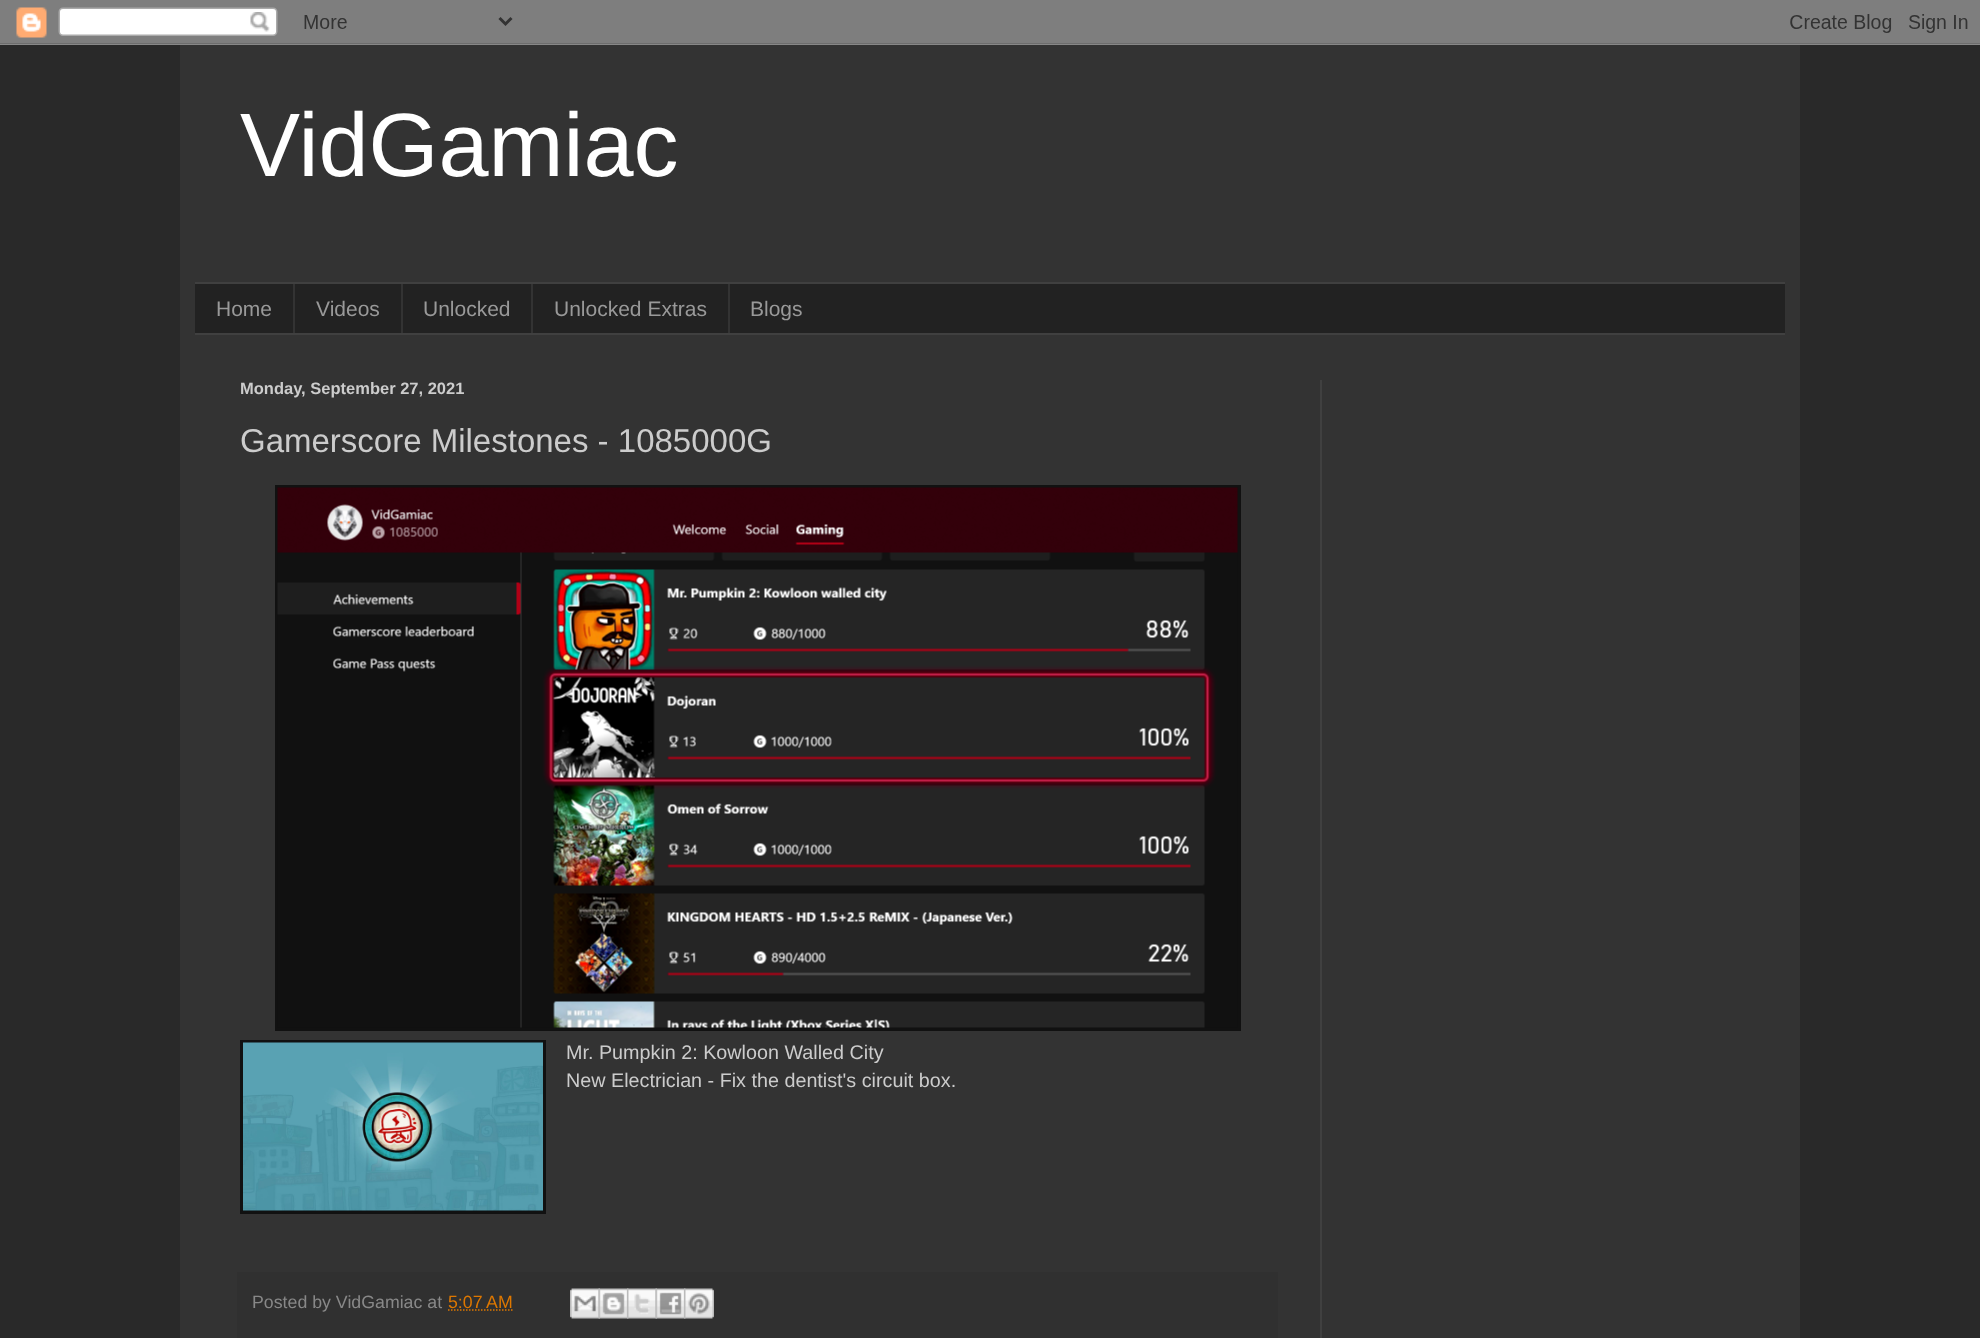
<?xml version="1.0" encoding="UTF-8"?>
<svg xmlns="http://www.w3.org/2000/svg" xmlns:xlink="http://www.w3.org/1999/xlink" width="1980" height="1338">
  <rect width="100%" height="100%" fill="#292929" />
  <image x="0" y="0" width="1980" height="45" xlink:href="image1.png" />
  <rect x="180" y="45" width="1620" height="1293" fill="#333333" />
  <rect x="195" y="284" width="1590" height="49" fill="#222222" />
  <rect x="195" y="282" width="1590" height="2" fill="#404040" />
  <rect x="195" y="333" width="1590" height="2" fill="#404040" />
  <rect x="293" y="284" width="2" height="49" fill="#333333" />
  <rect x="401" y="284" width="2" height="49" fill="#333333" />
  <rect x="531" y="284" width="2" height="49" fill="#333333" />
  <rect x="728" y="284" width="2" height="49" fill="#333333" />
  <rect x="275" y="485" width="966" height="546" fill="#111111" />
  <image x="277" y="487" width="961" height="541" xlink:href="image2.png" />
  <rect x="240" y="1040" width="306" height="174" fill="#111111" />
  <image x="243" y="1042" width="300" height="169" xlink:href="image3.png" />
  <rect x="237" y="1272" width="1041" height="66" fill="#303030" />
  <path d="M 448 1310 h 64.5" fill="none" stroke="#dd7700" stroke-width="1.5" stroke-dasharray="1.5 1.5" />
  <image x="570" y="1288" width="30" height="31" xlink:href="image4.png" />
  <image x="598" y="1288" width="31" height="31" xlink:href="image5.png" />
  <image x="627" y="1288" width="30" height="31" xlink:href="image6.png" />
  <image x="655" y="1288" width="31" height="31" xlink:href="image7.png" />
  <image x="684" y="1288" width="30" height="31" xlink:href="image8.png" />
  <rect x="1320" y="380" width="2" height="958" fill="#404040" />
  <text x="240" y="176" style="font-family: Liberation Sans; font-size: 90px; fill: #ffffff">VidGamiac</text>
  <text x="216" y="316" style="font-family: Liberation Sans; font-size: 21px; fill: #999999">Home</text>
  <text x="316" y="316" style="font-family: Liberation Sans; font-size: 21px; fill: #999999">Videos</text>
  <text x="423" y="316" style="font-family: Liberation Sans; font-size: 21px; fill: #999999">Unlocked</text>
  <text x="554" y="316" style="font-family: Liberation Sans; font-size: 21px; fill: #999999">Unlocked Extras</text>
  <text x="750" y="316" style="font-family: Liberation Sans; font-size: 21px; fill: #999999">Blogs</text>
  <text x="240" y="394" style="font-family: Liberation Sans; font-size: 16.5px; font-weight: bold; fill: #cccccc">Monday, September 27, 2021</text>
  <text x="240" y="452" style="font-family: Liberation Sans; font-size: 33px; fill: #cccccc">Gamerscore Milestones - 1085000G</text>
  <text x="566" y="1059" style="font-family: Liberation Sans; font-size: 19.75px; fill: #cccccc">Mr. Pumpkin 2: Kowloon Walled City</text>
  <text x="566" y="1087" style="font-family: Liberation Sans; font-size: 19.75px; fill: #cccccc">New Electrician - Fix the dentist's circuit box.</text>
  <text x="252" y="1308" style="font-family: Liberation Sans; font-size: 17.75px; fill: #888888">Posted by VidGamiac at</text>
  <text x="448" y="1308" style="font-family: Liberation Sans; font-size: 17.75px; fill: #dd7700">5:07 AM</text>
</svg>
